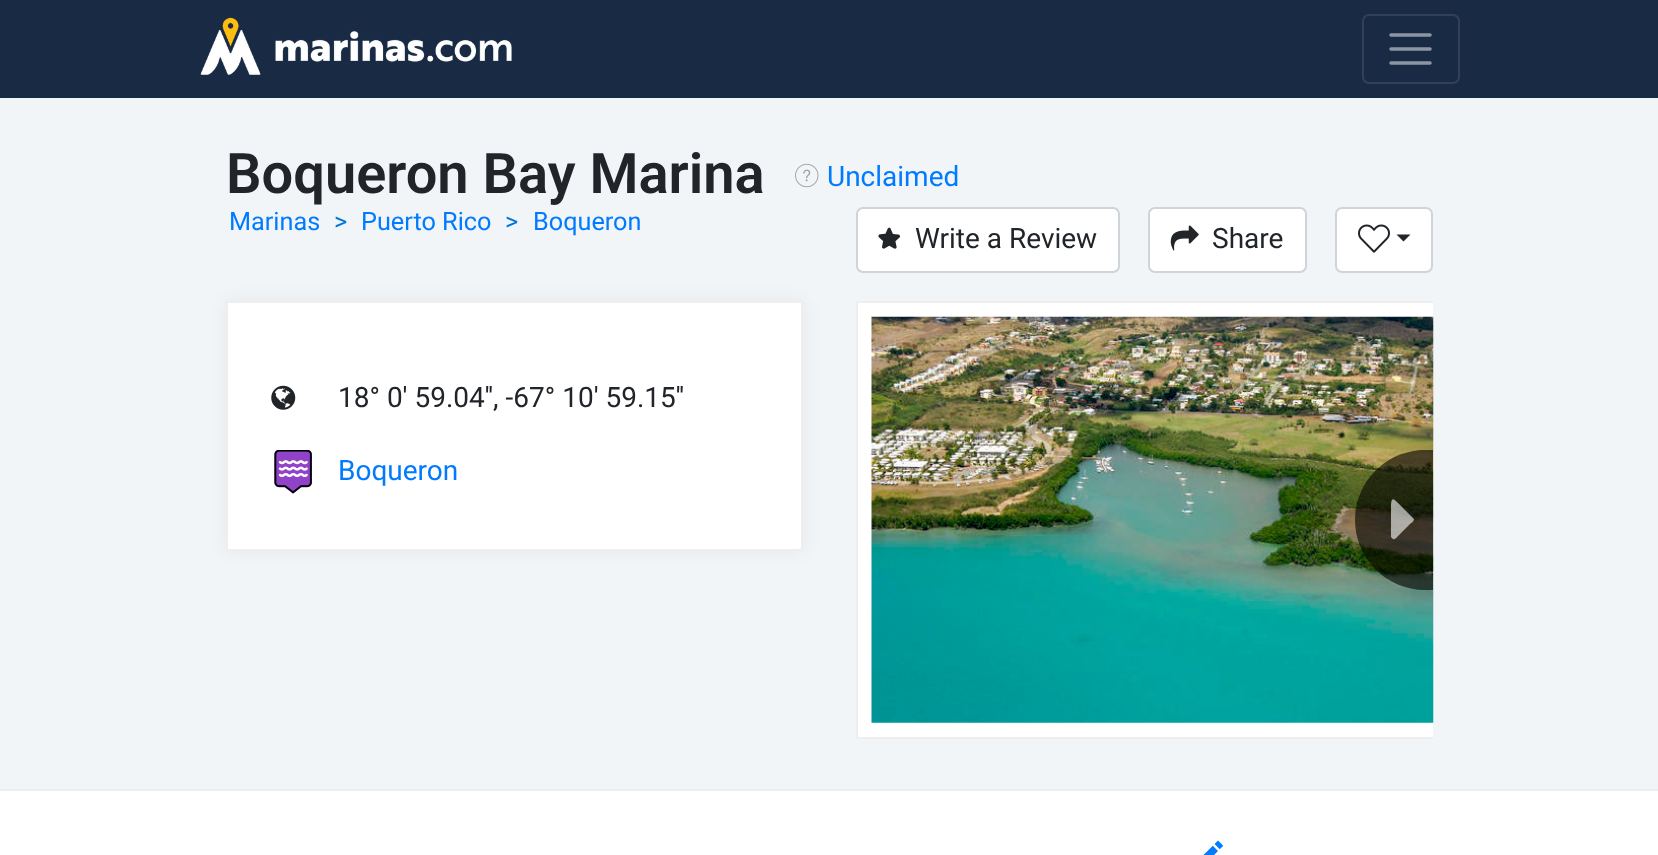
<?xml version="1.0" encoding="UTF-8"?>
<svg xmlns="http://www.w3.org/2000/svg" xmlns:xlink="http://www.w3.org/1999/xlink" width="1658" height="855">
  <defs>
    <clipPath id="clip1"><rect x="856" y="301" width="577" height="446" /></clipPath>
  </defs>
  <rect width="100%" height="100%" fill="#ffffff" />
  <rect width="1658" height="98" fill="#192b44" />
  <image x="200" y="17" width="312" height="58" xlink:href="image1.png" />
  <rect x="1363" y="15" width="96" height="68" rx="6" fill="none" stroke="#304057" stroke-width="2" />
  <path d="M 1391 35 h 39 m -39 14 h 39 m -39 14 h 39" fill="none" stroke="#8c95a2" stroke-width="3.5" stroke-linecap="round" />
  <rect y="98" width="1658" height="691" fill="#f1f5f8" />
  <rect y="789" width="1658" height="2" fill="#eeeeee" />
  <image x="795" y="163" width="24" height="25" xlink:href="image2.png" />
  <rect x="857" y="208" width="262" height="64" rx="6" fill="#ffffff" stroke="#ced4da" stroke-width="2" />
  <image x="878" y="227" width="23" height="22" xlink:href="image3.png" />
  <rect x="1149" y="208" width="157" height="64" rx="6" fill="#ffffff" stroke="#ced4da" stroke-width="2" />
  <image x="1170" y="225" width="29" height="26" xlink:href="image4.png" />
  <rect x="1336" y="208" width="96" height="64" rx="6" fill="#ffffff" stroke="#ced4da" stroke-width="2" />
  <image x="1358" y="224" width="32" height="29" xlink:href="image5.png" />
  <path d="M 1396.5 234.5 h 14 l -7 7 z" fill="#212529" />
  <rect x="226" y="301" width="577" height="250" fill="#000000" fill-opacity="0.05" filter="blur(9px)" />
  <rect x="227" y="302" width="575" height="248" fill="#ffffff" stroke="#eeeeee" stroke-width="2" />
  <image x="271" y="385" width="25" height="25" xlink:href="image6.png" />
  <image x="274" y="450" width="38" height="44" xlink:href="image7.png" />
  <rect x="858" y="303" width="575" height="434" fill="#ffffff" />
  <g clip-path="url(#clip1)">
    <rect x="857" y="302" width="638" height="436" fill="none" stroke="#eeeeee" stroke-width="2" />
  </g>
  <image x="871" y="316" width="563" height="407" xlink:href="image8.png" />
  <path d="M 1425 450 h 8 v 140 h -8 c -38.5 0 -70 -31.5 -70 -70 c 0 -38.5 31.5 -70 70 -70 z" fill="#000000" fill-opacity="0.6" />
  <path d="M 1413 518 c 3 2 -2 5 -3 6 l -12 12 c -1 1 -3 4 -5 3 l -2 -2 v -29 c 0 -9 1 -12 7 -5 z" fill="#ffffff" fill-opacity="0.6" />
  <image x="1203" y="840" width="21" height="15" xlink:href="image9.png" />
  <text x="226" y="193" style="font-family: Roboto; font-size: 56px; font-weight: 600; fill: #212529">Boqueron Bay Marina</text>
  <text x="229" y="230" style="font-family: Roboto; font-size: 25.25px; fill: #007bff">Marinas</text>
  <text x="334" y="230" style="font-family: Roboto; font-size: 25.25px; fill: #0275d8">&gt;</text>
  <text x="361" y="230" style="font-family: Roboto; font-size: 25.25px; fill: #007bff">Puerto Rico</text>
  <text x="505" y="230" style="font-family: Roboto; font-size: 25.25px; fill: #0275d8">&gt;</text>
  <text x="533" y="230" style="font-family: Roboto; font-size: 25.25px; fill: #007bff">Boqueron</text>
  <text x="827" y="186" style="font-family: Roboto; font-size: 28px; fill: #007bff">Unclaimed</text>
  <text x="915" y="248" style="font-family: Roboto; font-size: 28px; fill: #212529">Write a Review</text>
  <text x="1212" y="248" style="font-family: Roboto; font-size: 28px; fill: #212529">Share</text>
  <text x="338" y="407" style="font-family: Roboto; font-size: 28px; fill: #212529">18° 0' 59.04'', -67° 10' 59.15''</text>
  <text x="338" y="480" style="font-family: Roboto; font-size: 28px; fill: #007bff">Boqueron</text>
</svg>
